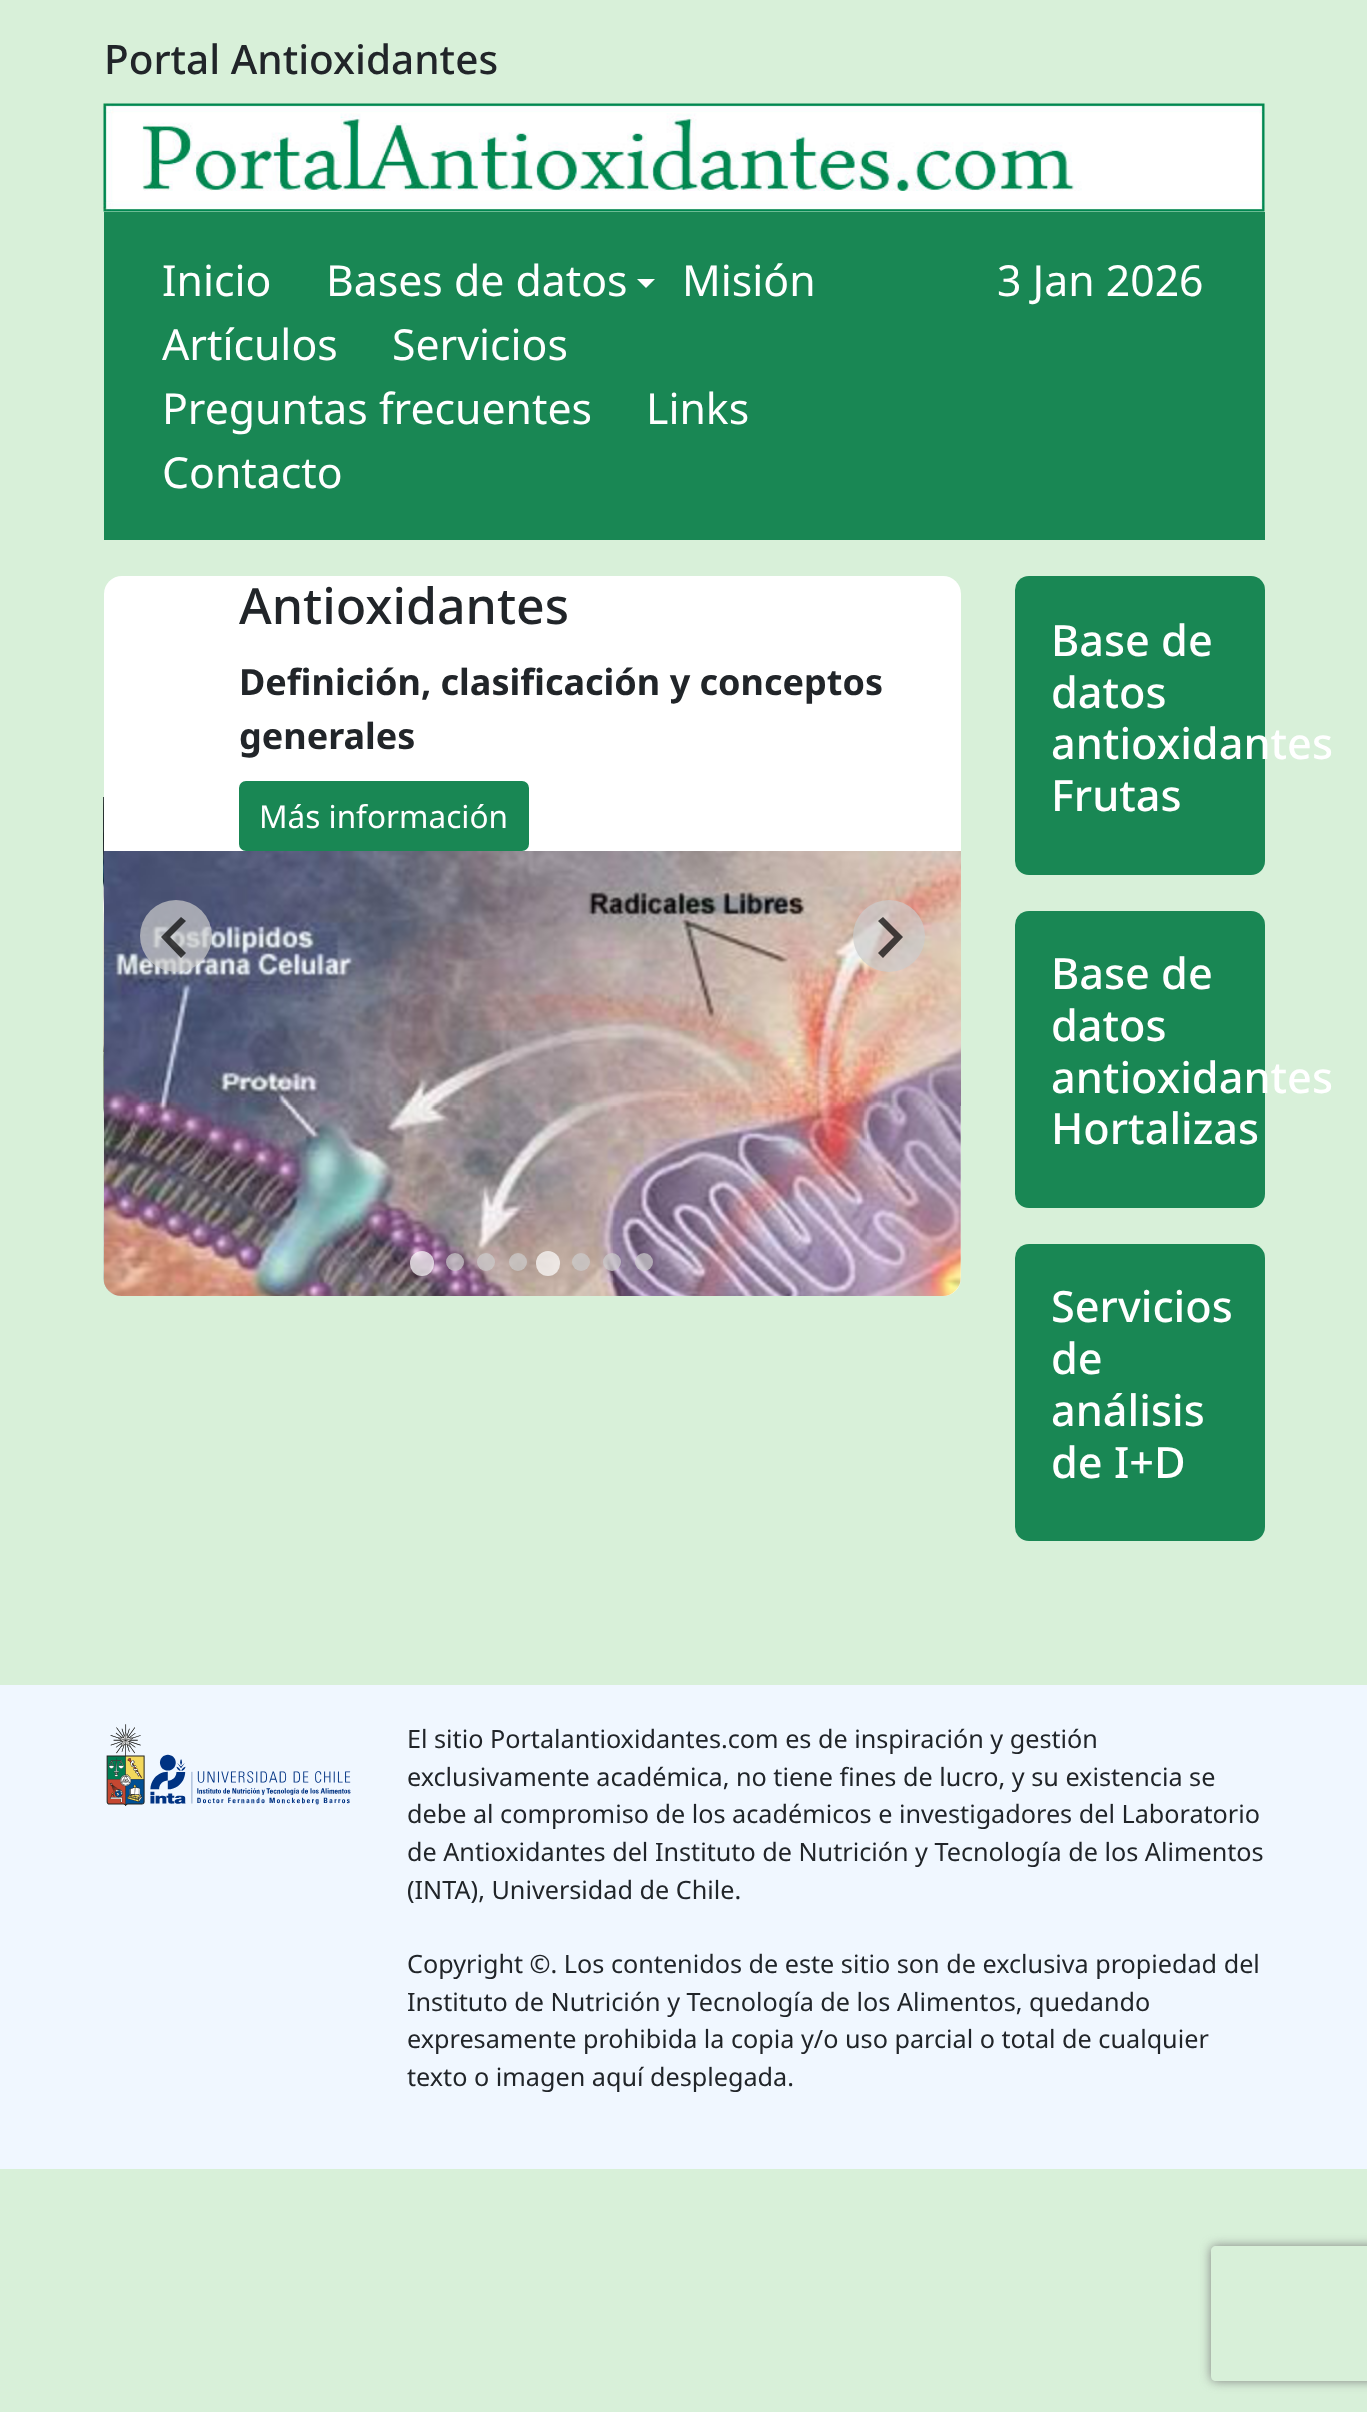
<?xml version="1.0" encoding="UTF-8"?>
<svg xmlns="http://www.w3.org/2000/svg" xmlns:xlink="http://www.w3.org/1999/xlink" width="1367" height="2412">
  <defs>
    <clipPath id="clip1"><path d="M 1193 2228 h 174 v 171 h -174 z m 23 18 h 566 c 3 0 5 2 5 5 v 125 c 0 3 -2 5 -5 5 h -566 c -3 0 -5 -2 -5 -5 v -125 c 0 -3 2 -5 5 -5 z" clip-rule="evenodd" /></clipPath>
  </defs>
  <rect width="100%" height="100%" fill="#d8f0d9" />
  <image x="103" y="103" width="1162" height="109" xlink:href="image1.png" />
  <rect x="104" y="212" width="1161" height="328" fill="#198754" />
  <path d="M 637 279 h 18 l -9 9 z" fill="#ffffff" />
  <image x="103" y="797" width="18" height="499" xlink:href="image3.png" />
  <rect x="104" y="576" width="857" height="720" rx="18" fill="#ffffff" />
  <rect x="240" y="782" width="288" height="68" rx="6" fill="#198754" stroke="#198754" stroke-width="2" />
  <image x="104" y="851" width="857" height="445" xlink:href="image2.png" />
  <circle cx="176" cy="936" r="36" fill="#cccccc" fill-opacity="0.7" />
  <path d="M 181 917 l 5 4 l -16 16 l 16 16 l -5 5 l -20 -21 z" fill="#000000" fill-opacity="0.7" />
  <circle cx="889" cy="936" r="36" fill="#cccccc" fill-opacity="0.7" />
  <path d="M 883 917 l -5 4 l 16 16 l -16 16 l 5 5 l 20 -21 z" fill="#000000" fill-opacity="0.7" />
  <rect x="410" y="1251" width="24" height="25" rx="12" fill="#ffffff" fill-opacity="0.7" />
  <circle cx="455" cy="1262" r="9" fill="#cccccc" fill-opacity="0.7" />
  <circle cx="486" cy="1262" r="9" fill="#cccccc" fill-opacity="0.7" />
  <circle cx="518" cy="1262" r="9" fill="#cccccc" fill-opacity="0.7" />
  <rect x="536" y="1251" width="24" height="25" rx="12" fill="#ffffff" fill-opacity="0.7" />
  <circle cx="581" cy="1262" r="9" fill="#cccccc" fill-opacity="0.7" />
  <circle cx="612" cy="1262" r="9" fill="#cccccc" fill-opacity="0.7" />
  <circle cx="644" cy="1262" r="9" fill="#cccccc" fill-opacity="0.7" />
  <rect x="1015" y="576" width="250" height="299" rx="14" fill="#198754" />
  <rect x="1015" y="911" width="250" height="297" rx="14" fill="#198754" />
  <rect x="1015" y="1244" width="250" height="297" rx="14" fill="#198754" />
  <rect y="1685" width="1367" height="484" fill="#f0f7ff" />
  <image x="106" y="1724" width="245" height="82" xlink:href="image4.png" />
  <g clip-path="url(#clip1)">
    <rect x="1211" y="2246" width="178" height="135" rx="5" fill="#808080" filter="blur(5.5px)" />
  </g>
  <text x="104" y="74" style="font-family: Noto Sans; font-size: 40.5px; font-weight: 500; fill: #212529">Portal Antioxidantes</text>
  <text x="162" y="296" style="font-family: Noto Sans; font-size: 42.75px; fill: #ffffff">Inicio</text>
  <text x="326" y="296" style="font-family: Noto Sans; font-size: 42.75px; fill: #ffffff">Bases de datos</text>
  <text x="682" y="296" style="font-family: Noto Sans; font-size: 42.75px; fill: #ffffff">Misión</text>
  <text x="162" y="360" style="font-family: Noto Sans; font-size: 42.75px; fill: #ffffff">Artículos</text>
  <text x="392" y="360" style="font-family: Noto Sans; font-size: 42.75px; fill: #ffffff">Servicios</text>
  <text x="162" y="424" style="font-family: Noto Sans; font-size: 42.75px; fill: #ffffff">Preguntas frecuentes</text>
  <text x="646" y="424" style="font-family: Noto Sans; font-size: 42.75px; fill: #ffffff">Links</text>
  <text x="162" y="488" style="font-family: Noto Sans; font-size: 42.75px; fill: #ffffff">Contacto</text>
  <text x="997" y="296" style="font-family: Noto Sans; font-size: 42.75px; fill: #ffffff">3 Jan 2026</text>
  <text x="239" y="624" style="font-family: Noto Sans; font-size: 50px; font-weight: 500; fill: #212529">Antioxidantes</text>
  <text x="239" y="695" style="font-family: Noto Sans; font-size: 36px; font-weight: bold; fill: #212529">Definición, clasificación y conceptos</text>
  <text x="239" y="749" style="font-family: Noto Sans; font-size: 36px; font-weight: bold; fill: #212529">generales</text>
  <text x="259" y="828" style="font-family: Noto Sans; font-size: 31.5px; fill: #ffffff">Más información</text>
  <text x="1051" y="656" style="font-family: Noto Sans; font-size: 43.25px; font-weight: 500; fill: #ffffff">Base de</text>
  <text x="1051" y="708" style="font-family: Noto Sans; font-size: 43.25px; font-weight: 500; fill: #ffffff">datos</text>
  <text x="1051" y="759" style="font-family: Noto Sans; font-size: 43.25px; font-weight: 500; fill: #ffffff">antioxidantes</text>
  <text x="1051" y="811" style="font-family: Noto Sans; font-size: 43.25px; font-weight: 500; fill: #ffffff">Frutas</text>
  <text x="1051" y="989" style="font-family: Noto Sans; font-size: 43.25px; font-weight: 500; fill: #ffffff">Base de</text>
  <text x="1051" y="1041" style="font-family: Noto Sans; font-size: 43.25px; font-weight: 500; fill: #ffffff">datos</text>
  <text x="1051" y="1093" style="font-family: Noto Sans; font-size: 43.25px; font-weight: 500; fill: #ffffff">antioxidantes</text>
  <text x="1051" y="1144" style="font-family: Noto Sans; font-size: 43.25px; font-weight: 500; fill: #ffffff">Hortalizas</text>
  <text x="1051" y="1322" style="font-family: Noto Sans; font-size: 43.25px; font-weight: 500; fill: #ffffff">Servicios</text>
  <text x="1051" y="1374" style="font-family: Noto Sans; font-size: 43.25px; font-weight: 500; fill: #ffffff">de</text>
  <text x="1051" y="1426" style="font-family: Noto Sans; font-size: 43.25px; font-weight: 500; fill: #ffffff">análisis</text>
  <text x="1051" y="1478" style="font-family: Noto Sans; font-size: 43.25px; font-weight: 500; fill: #ffffff">de I+D</text>
  <text x="407" y="1748" style="font-family: Noto Sans; font-size: 25.2px; fill: #212529">El sitio Portalantioxidantes.com es de inspiración y gestión</text>
  <text x="407" y="1786" style="font-family: Noto Sans; font-size: 25.2px; fill: #212529">exclusivamente académica, no tiene fines de lucro, y su existencia se</text>
  <text x="407" y="1823" style="font-family: Noto Sans; font-size: 25.2px; fill: #212529">debe al compromiso de los académicos e investigadores del Laboratorio</text>
  <text x="407" y="1861" style="font-family: Noto Sans; font-size: 25.2px; fill: #212529">de Antioxidantes del Instituto de Nutrición y Tecnología de los Alimentos</text>
  <text x="407" y="1899" style="font-family: Noto Sans; font-size: 25.2px; fill: #212529">(INTA), Universidad de Chile.</text>
  <text x="407" y="1973" style="font-family: Noto Sans; font-size: 25.2px; fill: #212529">Copyright ©. Los contenidos de este sitio son de exclusiva propiedad del</text>
  <text x="407" y="2011" style="font-family: Noto Sans; font-size: 25.2px; fill: #212529">Instituto de Nutrición y Tecnología de los Alimentos, quedando</text>
  <text x="407" y="2048" style="font-family: Noto Sans; font-size: 25.2px; fill: #212529">expresamente prohibida la copia y/o uso parcial o total de cualquier</text>
  <text x="407" y="2086" style="font-family: Noto Sans; font-size: 25.2px; fill: #212529">texto o imagen aquí desplegada.</text>
</svg>
